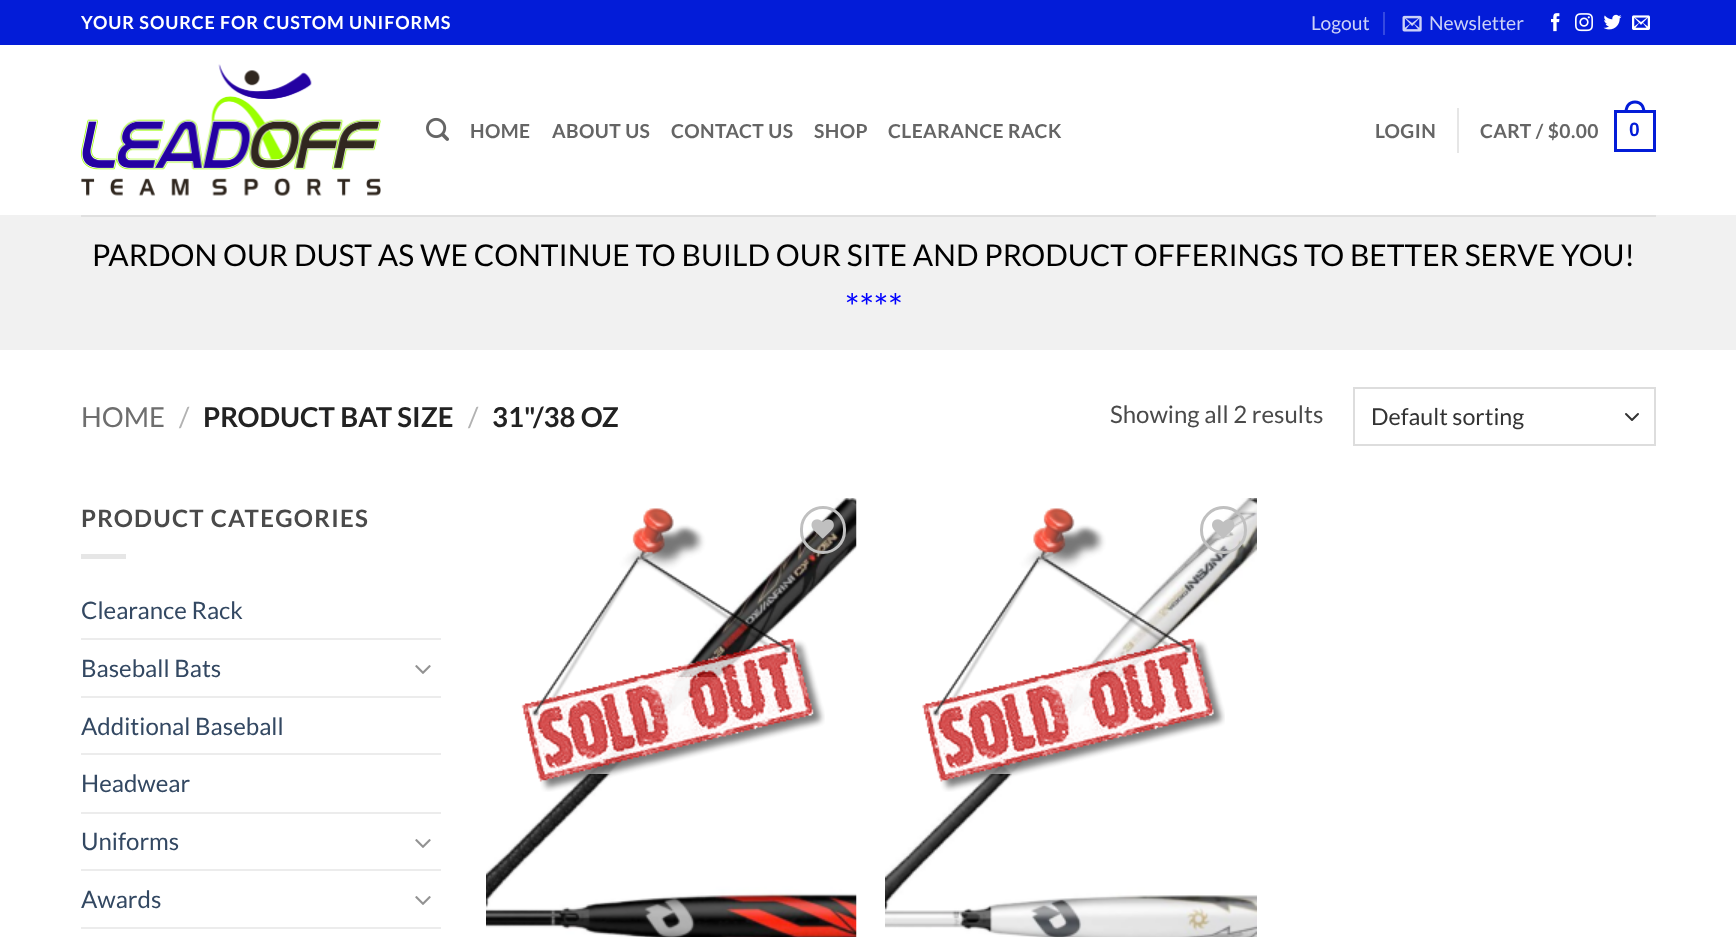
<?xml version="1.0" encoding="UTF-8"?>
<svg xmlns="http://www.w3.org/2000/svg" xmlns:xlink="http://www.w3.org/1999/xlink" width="1736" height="937">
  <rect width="100%" height="100%" fill="#ffffff" />
  <rect width="1736" height="45" fill="#031cd8" />
  <rect x="1383" y="12" width="2" height="23" fill="#3549e0" />
  <image x="1402" y="15" width="20" height="17" xlink:href="image1.png" />
  <image x="1551" y="13" width="9" height="19" xlink:href="image2.png" />
  <image x="1575" y="13" width="18" height="19" xlink:href="image3.png" />
  <image x="1603" y="14" width="19" height="16" xlink:href="image4.png" />
  <image x="1632" y="15" width="18" height="15" xlink:href="image5.png" />
  <image x="81" y="64" width="300" height="132" xlink:href="image6.png" />
  <image x="426" y="117" width="23" height="24" xlink:href="image7.png" />
  <rect x="1457" y="108" width="2" height="45" fill="#e6e6e6" />
  <rect x="1615.5" y="111.5" width="39" height="39" fill="none" stroke="#031cd8" stroke-width="3" />
  <path d="M 1635 100.5 c 7 0 10.5 5.5 10.5 12 h -21 c 0 -6.5 3.5 -12 10.5 -12 z m 0 3 c 5.5 0 7.5 4.5 7.5 9 h -15 c 0 -4.5 2 -9 7.5 -9 z" fill="#031cd8" fill-rule="evenodd" />
  <rect y="215" width="1736" height="135" fill="#f1f1f1" />
  <rect x="81" y="215" width="1575" height="2" fill="#e0e0e0" />
  <path d="M 1626 414 l 6 6 l 6 -6" fill="none" stroke="#333333" stroke-width="2" stroke-linecap="round" stroke-linejoin="round" />
  <rect x="1354" y="388" width="301" height="57" fill="none" stroke="#dddddd" stroke-width="2" />
  <rect x="81" y="554" width="45" height="5" fill="#e6e6e6" />
  <rect x="81" y="638" width="360" height="2" fill="#ececec" />
  <image x="415" y="665" width="16" height="9" xlink:href="image8.png" />
  <rect x="81" y="696" width="360" height="2" fill="#ececec" />
  <rect x="81" y="753" width="360" height="2" fill="#ececec" />
  <rect x="81" y="812" width="360" height="2" fill="#ececec" />
  <image x="415" y="839" width="16" height="9" xlink:href="image8.png" />
  <rect x="81" y="869" width="360" height="2" fill="#ececec" />
  <image x="415" y="896" width="16" height="9" xlink:href="image8.png" />
  <rect x="81" y="927" width="360" height="2" fill="#ececec" />
  <image x="486" y="498" width="371" height="439" xlink:href="image9.png" />
  <rect x="801.5" y="507.5" width="43" height="45" rx="21.5" fill="none" stroke="#c0c0c0" stroke-width="3" />
  <image x="811" y="519" width="23" height="20" xlink:href="image11.png" />
  <rect x="586" y="677" width="134" height="97" fill="#ffffff" fill-opacity="0.81" />
  <image x="521" y="508" width="304" height="284" xlink:href="image10.png" />
  <image x="885" y="498" width="372" height="439" xlink:href="image12.png" />
  <rect x="1201.5" y="507.5" width="44" height="45" rx="22" fill="none" stroke="#c0c0c0" stroke-width="3" />
  <image x="1212" y="519" width="23" height="20" xlink:href="image14.png" />
  <rect x="989" y="677" width="134" height="97" fill="#ffffff" fill-opacity="0.81" />
  <image x="922" y="508" width="303" height="284" xlink:href="image13.png" />
  <text x="81" y="29" style="font-family: Lato; font-size: 18px; font-weight: bold; letter-spacing: 0.9px; fill: #ffffff">YOUR SOURCE FOR CUSTOM UNIFORMS</text>
  <text x="1311" y="30" style="font-family: Lato; font-size: 19.25px; fill: #cdd2f7">Logout</text>
  <text x="1429" y="30" style="font-family: Lato; font-size: 19.25px; fill: #cdd2f7">Newsletter</text>
  <text x="470" y="138" style="font-family: Lato; font-size: 19.25px; font-weight: bold; letter-spacing: 0.4px; fill: #656565">HOME</text>
  <text x="552" y="138" style="font-family: Lato; font-size: 19.25px; font-weight: bold; letter-spacing: 0.4px; fill: #656565">ABOUT US</text>
  <text x="671" y="138" style="font-family: Lato; font-size: 19.25px; font-weight: bold; letter-spacing: 0.4px; fill: #656565">CONTACT US</text>
  <text x="814" y="138" style="font-family: Lato; font-size: 19.25px; font-weight: bold; letter-spacing: 0.4px; fill: #656565">SHOP</text>
  <text x="888" y="138" style="font-family: Lato; font-size: 19.25px; font-weight: bold; letter-spacing: 0.4px; fill: #656565">CLEARANCE RACK</text>
  <text x="1375" y="138" style="font-family: Lato; font-size: 19.25px; font-weight: bold; letter-spacing: 0.4px; fill: #656565">LOGIN</text>
  <text x="1480" y="138" style="font-family: Lato; font-size: 19.25px; font-weight: bold; letter-spacing: 0.4px; fill: #656565">CART / $0.00</text>
  <text x="1629" y="136" style="font-family: Liberation Sans; font-size: 19.25px; font-weight: bold; letter-spacing: 0.4px; fill: #031cd8">0</text>
  <text x="92" y="266" style="font-family: Lato; font-size: 30px; fill: #000000">PARDON OUR DUST AS WE CONTINUE TO BUILD OUR SITE AND PRODUCT OFFERINGS TO BETTER SERVE YOU!</text>
  <text x="845" y="320" style="font-family: Lato; font-size: 36px; fill: #0000ff">****</text>
  <text x="81" y="427" style="font-family: Lato; font-size: 27.5px; fill: #6e6e6e">HOME</text>
  <text x="179" y="427" style="font-family: Lato; font-size: 27.5px; fill: #b2b2b2">/</text>
  <text x="203" y="427" style="font-family: Lato; font-size: 27.5px; font-weight: bold; fill: #222222">PRODUCT BAT SIZE</text>
  <text x="468" y="427" style="font-family: Lato; font-size: 27.5px; fill: #b2b2b2">/</text>
  <text x="492" y="427" style="font-family: Lato; font-size: 27.5px; font-weight: bold; fill: #222222">31"/38 OZ</text>
  <text x="1110" y="423" style="font-family: Lato; font-size: 24px; fill: #4a4a4a">Showing all 2 results</text>
  <text x="1371" y="425" style="font-family: Lato; font-size: 23.25px; fill: #333333">Default sorting</text>
  <text x="81" y="527" style="font-family: Lato; font-size: 24px; font-weight: bold; letter-spacing: 1.25px; fill: #4a4a4a">PRODUCT CATEGORIES</text>
  <text x="81" y="619" style="font-family: Lato; font-size: 24px; fill: #334862">Clearance Rack</text>
  <text x="81" y="677" style="font-family: Lato; font-size: 24px; fill: #334862">Baseball Bats</text>
  <text x="81" y="735" style="font-family: Lato; font-size: 24px; fill: #334862">Additional Baseball</text>
  <text x="81" y="792" style="font-family: Lato; font-size: 24px; fill: #334862">Headwear</text>
  <text x="81" y="850" style="font-family: Lato; font-size: 24px; fill: #334862">Uniforms</text>
  <text x="81" y="908" style="font-family: Lato; font-size: 24px; fill: #334862">Awards</text>
</svg>
